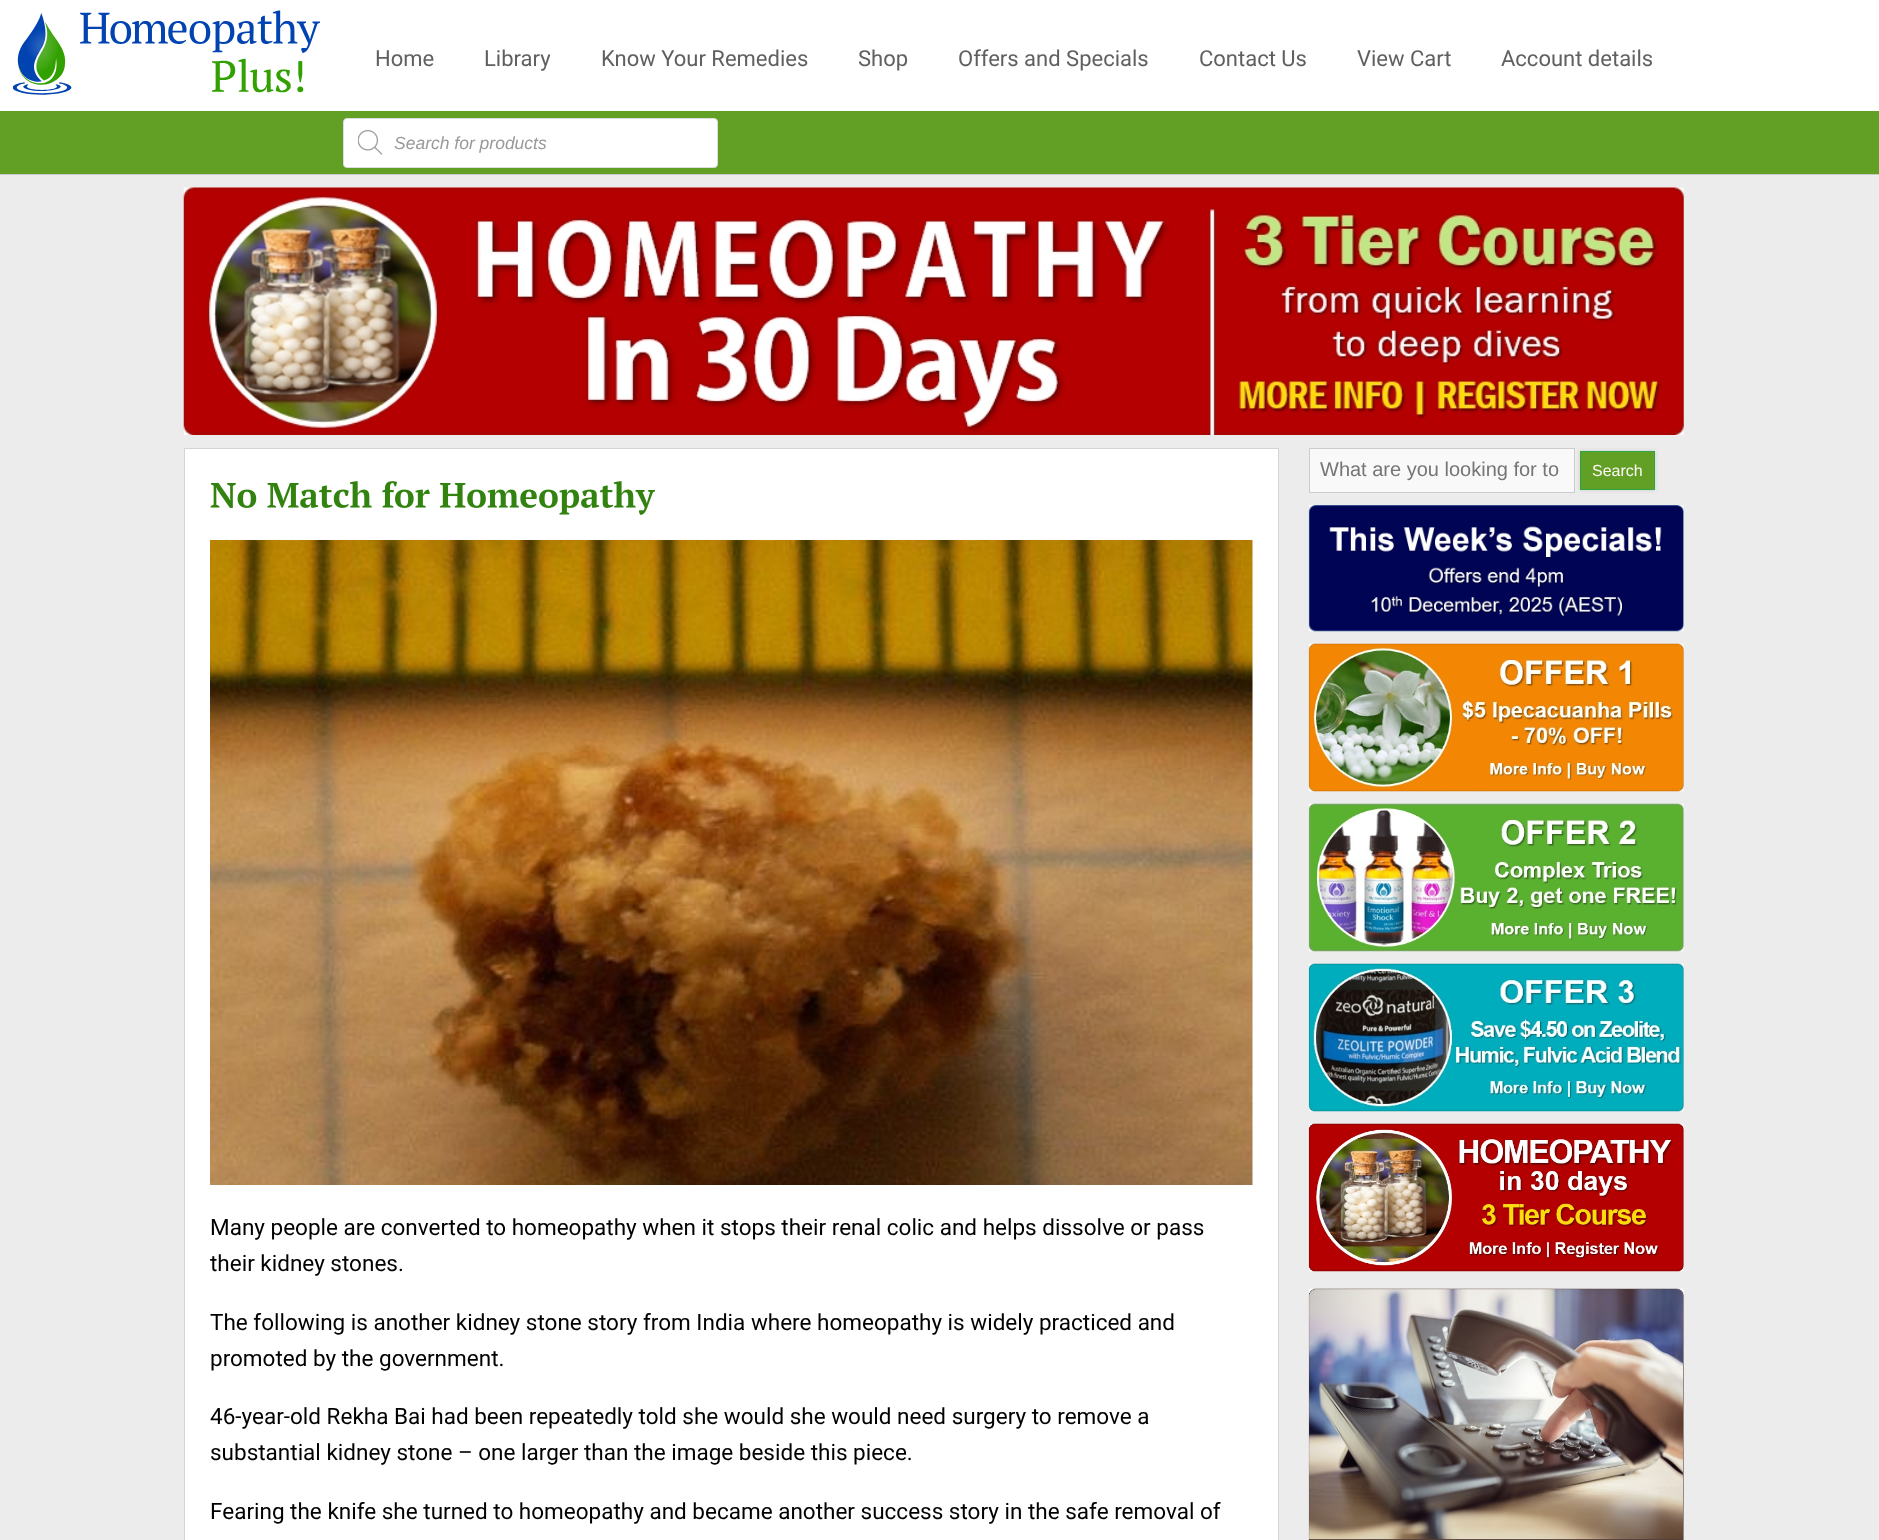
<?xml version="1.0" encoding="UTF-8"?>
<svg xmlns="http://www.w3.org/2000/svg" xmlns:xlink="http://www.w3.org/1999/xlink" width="1879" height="1540">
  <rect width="100%" height="100%" fill="#ececec" />
  <rect width="1879" height="111" fill="#ffffff" />
  <image x="13" y="10" width="307" height="85" xlink:href="image1.png" />
  <rect y="111" width="1879" height="63" fill="#629f25" />
  <rect x="343.5" y="118.5" width="374" height="49" rx="3.5" fill="#ffffff" stroke="#dddddd" />
  <image x="358" y="130" width="25" height="25" xlink:href="image2.png" />
  <rect y="174" width="1879" height="1" fill="#c8c8c8" />
  <image x="183" y="187" width="1501" height="248" xlink:href="image3.png" />
  <rect x="1309.5" y="448.5" width="265" height="44" fill="#f9f9f9" stroke="#cccccc" />
  <rect x="1580" y="451" width="75" height="39" fill="#cccccc" filter="blur(2px)" />
  <rect x="1580.5" y="451.5" width="74" height="38" fill="#629f25" stroke="#2ea545" />
  <image x="1308" y="505" width="376" height="127" xlink:href="image4.png" />
  <image x="1308" y="643" width="376" height="149" xlink:href="image5.png" />
  <image x="1308" y="803" width="376" height="149" xlink:href="image6.png" />
  <image x="1308" y="963" width="376" height="149" xlink:href="image7.png" />
  <image x="1308" y="1123" width="376" height="149" xlink:href="image8.png" />
  <image x="1308" y="1288" width="376" height="252" xlink:href="image9.png" />
  <rect x="184.5" y="448.5" width="1094" height="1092" fill="#ffffff" stroke="#d5d5d5" />
  <image x="210" y="481" width="445" height="34" xlink:href="image10.png" />
  <image x="210" y="540" width="1043" height="645" xlink:href="image11.png" />
  <text x="375" y="66" style="font-family: Roboto; font-size: 22px; fill: #616060">Home</text>
  <text x="484" y="66" style="font-family: Roboto; font-size: 22px; fill: #616060">Library</text>
  <text x="601" y="66" style="font-family: Roboto; font-size: 22px; fill: #616060">Know Your Remedies</text>
  <text x="858" y="66" style="font-family: Roboto; font-size: 22px; fill: #616060">Shop</text>
  <text x="958" y="66" style="font-family: Roboto; font-size: 22px; fill: #616060">Offers and Specials</text>
  <text x="1199" y="66" style="font-family: Roboto; font-size: 22px; fill: #616060">Contact Us</text>
  <text x="1357" y="66" style="font-family: Roboto; font-size: 22px; fill: #616060">View Cart</text>
  <text x="1501" y="66" style="font-family: Roboto; font-size: 22px; fill: #616060">Account details</text>
  <text x="394" y="149" style="font-family: Liberation Sans; font-size: 17.5px; font-style: italic; fill: #999999">Search for products</text>
  <text x="1320" y="476" style="font-family: Liberation Sans; font-size: 20px; fill: #757575">What are you looking for to</text>
  <text x="1592" y="476" style="font-family: Liberation Sans; font-size: 16px; fill: #fff7f7">Search</text>
  <text x="210" y="1235" style="font-family: Roboto; font-size: 22.5px; fill: #000000">Many people are converted to homeopathy when it stops their renal colic and helps dissolve or pass</text>
  <text x="210" y="1271" style="font-family: Roboto; font-size: 22.5px; fill: #000000">their kidney stones.</text>
  <text x="210" y="1330" style="font-family: Roboto; font-size: 22.5px; fill: #000000">The following is another kidney stone story from India where homeopathy is widely practiced and</text>
  <text x="210" y="1366" style="font-family: Roboto; font-size: 22.5px; fill: #000000">promoted by the government.</text>
  <text x="210" y="1424" style="font-family: Roboto; font-size: 22.5px; fill: #000000">46-year-old Rekha Bai had been repeatedly told she would she would need surgery to remove a</text>
  <text x="210" y="1460" style="font-family: Roboto; font-size: 22.5px; fill: #000000">substantial kidney stone – one larger than the image beside this piece.</text>
  <text x="210" y="1519" style="font-family: Roboto; font-size: 22.5px; fill: #000000">Fearing the knife she turned to homeopathy and became another success story in the safe removal of</text>
</svg>
